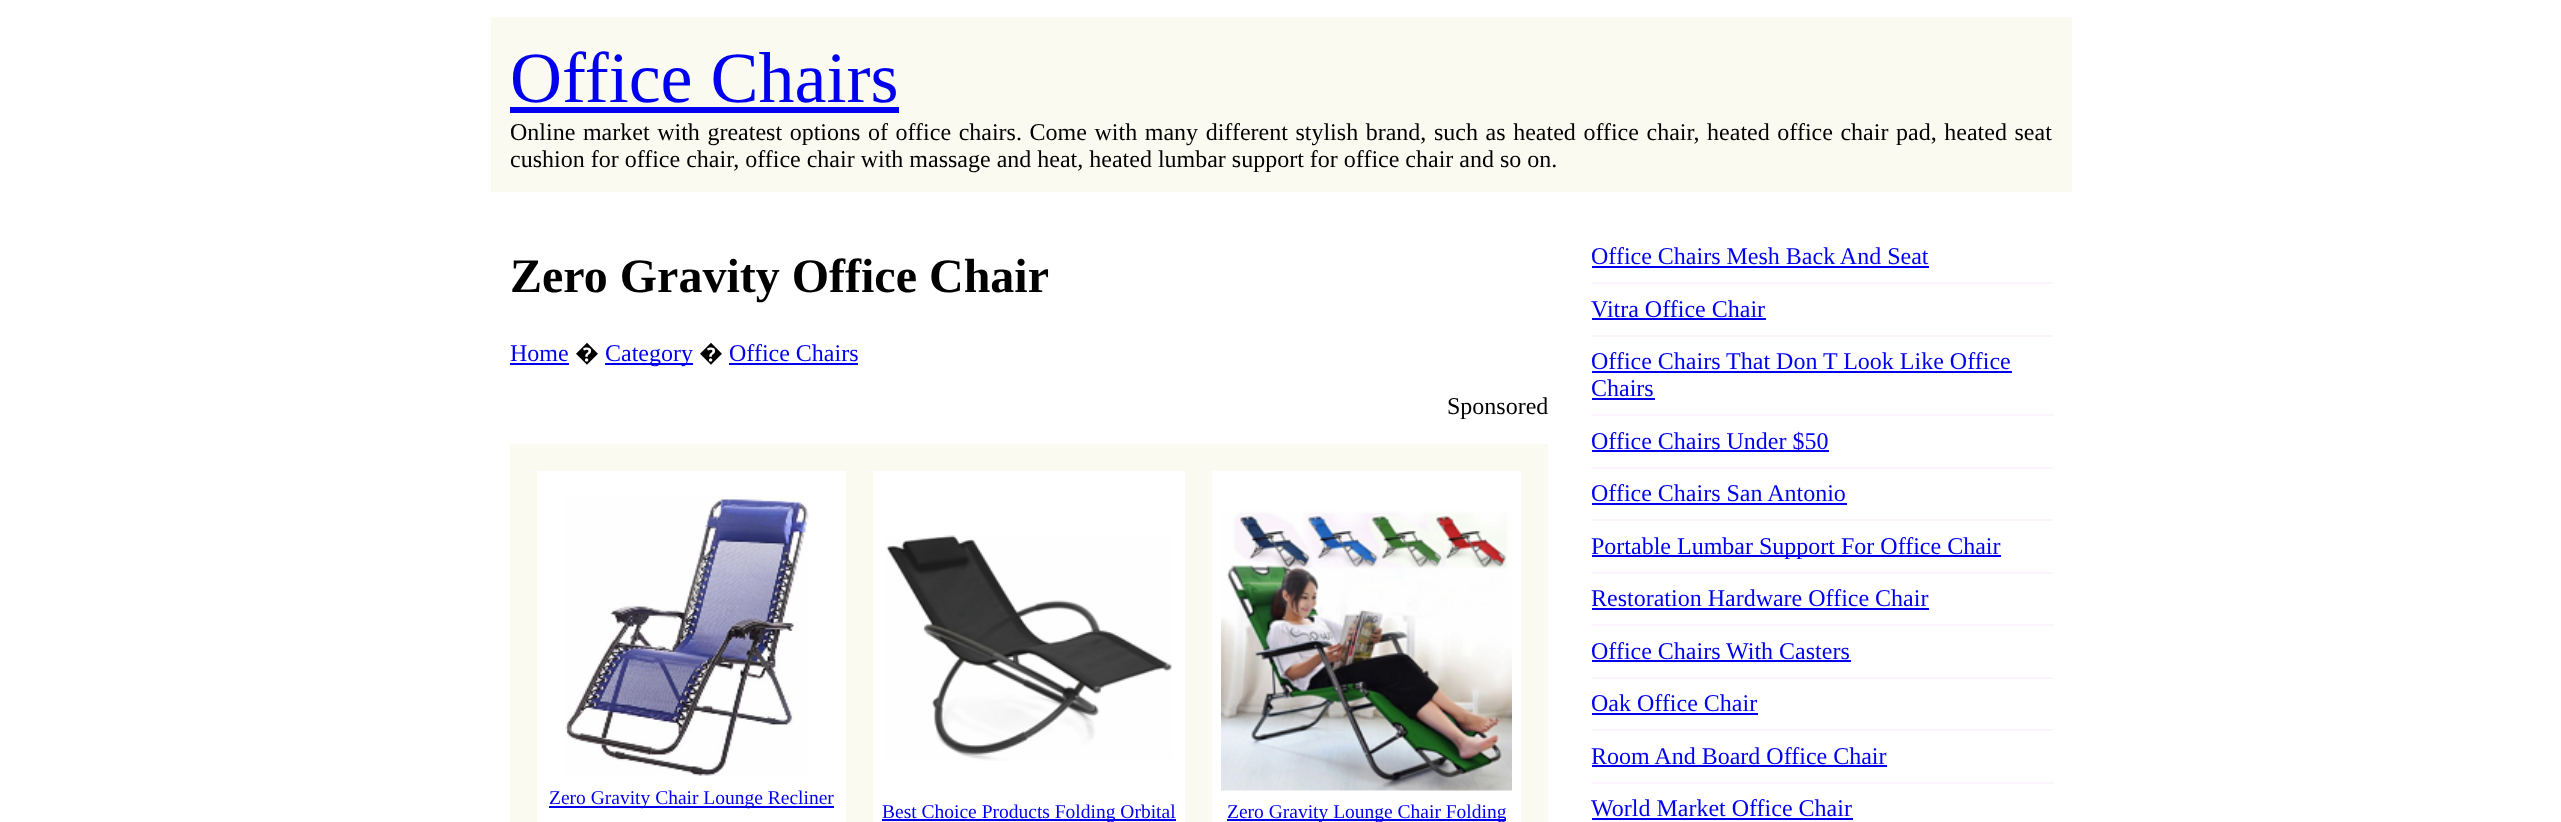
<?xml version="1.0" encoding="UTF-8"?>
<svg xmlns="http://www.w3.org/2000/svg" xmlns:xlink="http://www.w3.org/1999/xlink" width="2561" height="822">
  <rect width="100%" height="100%" fill="#ffffff" />
  <rect x="491" y="17" width="1581" height="175" fill="#fafaf1" />
  <rect x="510" y="107" width="389" height="6" fill="#0000ee" />
  <rect x="510" y="363" width="59" height="2" fill="#0000ee" />
  <rect x="605" y="363" width="88" height="2" fill="#0000ee" />
  <rect x="729" y="363" width="129" height="2" fill="#0000ee" />
  <rect x="510" y="444" width="1038" height="378" fill="#fafaf1" />
  <rect x="537" y="471" width="309" height="351" fill="#ffffff" />
  <image x="565" y="496" width="244" height="280" xlink:href="image1.png" />
  <rect x="549" y="806" width="285" height="2" fill="#0000ee" />
  <rect x="873" y="471" width="312" height="351" fill="#ffffff" />
  <image x="886" y="535" width="286" height="226" xlink:href="image2.png" />
  <rect x="882" y="819" width="294" height="2" fill="#0000ee" />
  <rect x="1212" y="471" width="309" height="351" fill="#ffffff" />
  <image x="1221" y="511" width="291" height="280" xlink:href="image3.png" />
  <rect x="1227" y="819" width="279" height="2" fill="#0000ee" />
  <rect x="1592" y="266" width="337" height="2" fill="#0000ee" />
  <rect x="1592" y="282" width="461" height="2" fill="#fbf4ff" />
  <rect x="1592" y="318" width="174" height="2" fill="#0000ee" />
  <rect x="1592" y="335" width="461" height="2" fill="#fbf4ff" />
  <rect x="1592" y="371" width="420" height="2" fill="#0000ee" />
  <rect x="1592" y="398" width="63" height="2" fill="#0000ee" />
  <rect x="1592" y="414" width="461" height="2" fill="#fbf4ff" />
  <rect x="1592" y="450" width="237" height="2" fill="#0000ee" />
  <rect x="1592" y="467" width="461" height="2" fill="#fbf4ff" />
  <rect x="1592" y="503" width="255" height="2" fill="#0000ee" />
  <rect x="1592" y="519" width="461" height="2" fill="#fbf4ff" />
  <rect x="1592" y="555" width="409" height="2" fill="#0000ee" />
  <rect x="1592" y="572" width="461" height="2" fill="#fbf4ff" />
  <rect x="1592" y="608" width="337" height="2" fill="#0000ee" />
  <rect x="1592" y="624" width="461" height="2" fill="#fbf4ff" />
  <rect x="1592" y="660" width="259" height="2" fill="#0000ee" />
  <rect x="1592" y="677" width="461" height="2" fill="#fbf4ff" />
  <rect x="1592" y="713" width="166" height="2" fill="#0000ee" />
  <rect x="1592" y="729" width="461" height="2" fill="#fbf4ff" />
  <rect x="1592" y="765" width="295" height="2" fill="#0000ee" />
  <rect x="1592" y="782" width="461" height="2" fill="#fbf4ff" />
  <rect x="1592" y="818" width="261" height="2" fill="#0000ee" />
  <text x="510" y="102" style="font-family: Liberation Serif; font-size: 72px; fill: #0000ee">Office Chairs</text>
  <text x="510" y="140" word-spacing="1.6" style="font-family: Liberation Serif; font-size: 24px; fill: #000000">Online market with greatest options of office chairs. Come with many different stylish brand, such as heated office chair, heated office chair pad, heated seat</text>
  <text x="510" y="167" style="font-family: Liberation Serif; font-size: 24px; fill: #000000">cushion for office chair, office chair with massage and heat, heated lumbar support for office chair and so on.</text>
  <text x="510" y="292" style="font-family: Liberation Serif; font-size: 48px; font-weight: bold; fill: #000000">Zero Gravity Office Chair</text>
  <text x="510" y="361" style="font-family: Liberation Serif; font-size: 24px; fill: #0000ee">Home</text>
  <text x="575" y="361" style="font-family: Noto Sans; font-size: 24px; fill: #000000">�</text>
  <text x="605" y="361" style="font-family: Liberation Serif; font-size: 24px; fill: #0000ee">Category</text>
  <text x="699" y="361" style="font-family: Noto Sans; font-size: 24px; fill: #000000">�</text>
  <text x="729" y="361" style="font-family: Liberation Serif; font-size: 24px; fill: #0000ee">Office Chairs</text>
  <text x="1447" y="414" style="font-family: Liberation Serif; font-size: 24px; fill: #000000">Sponsored</text>
  <text x="549" y="804" style="font-family: Liberation Serif; font-size: 19.5px; fill: #0000ee">Zero Gravity Chair Lounge Recliner</text>
  <text x="882" y="818" style="font-family: Liberation Serif; font-size: 19.5px; fill: #0000ee">Best Choice Products Folding Orbital</text>
  <text x="1227" y="818" style="font-family: Liberation Serif; font-size: 19.5px; fill: #0000ee">Zero Gravity Lounge Chair Folding</text>
  <text x="1591" y="264" style="font-family: Liberation Serif; font-size: 24px; fill: #0000ee">Office Chairs Mesh Back And Seat</text>
  <text x="1591" y="317" style="font-family: Liberation Serif; font-size: 24px; fill: #0000ee">Vitra Office Chair</text>
  <text x="1591" y="369" style="font-family: Liberation Serif; font-size: 24px; fill: #0000ee">Office Chairs That Don T Look Like Office</text>
  <text x="1591" y="396" style="font-family: Liberation Serif; font-size: 24px; fill: #0000ee">Chairs</text>
  <text x="1591" y="449" style="font-family: Liberation Serif; font-size: 24px; fill: #0000ee">Office Chairs Under $50</text>
  <text x="1591" y="501" style="font-family: Liberation Serif; font-size: 24px; fill: #0000ee">Office Chairs San Antonio</text>
  <text x="1591" y="554" style="font-family: Liberation Serif; font-size: 24px; fill: #0000ee">Portable Lumbar Support For Office Chair</text>
  <text x="1591" y="606" style="font-family: Liberation Serif; font-size: 24px; fill: #0000ee">Restoration Hardware Office Chair</text>
  <text x="1591" y="659" style="font-family: Liberation Serif; font-size: 24px; fill: #0000ee">Office Chairs With Casters</text>
  <text x="1591" y="711" style="font-family: Liberation Serif; font-size: 24px; fill: #0000ee">Oak Office Chair</text>
  <text x="1591" y="764" style="font-family: Liberation Serif; font-size: 24px; fill: #0000ee">Room And Board Office Chair</text>
  <text x="1591" y="816" style="font-family: Liberation Serif; font-size: 24px; fill: #0000ee">World Market Office Chair</text>
</svg>
